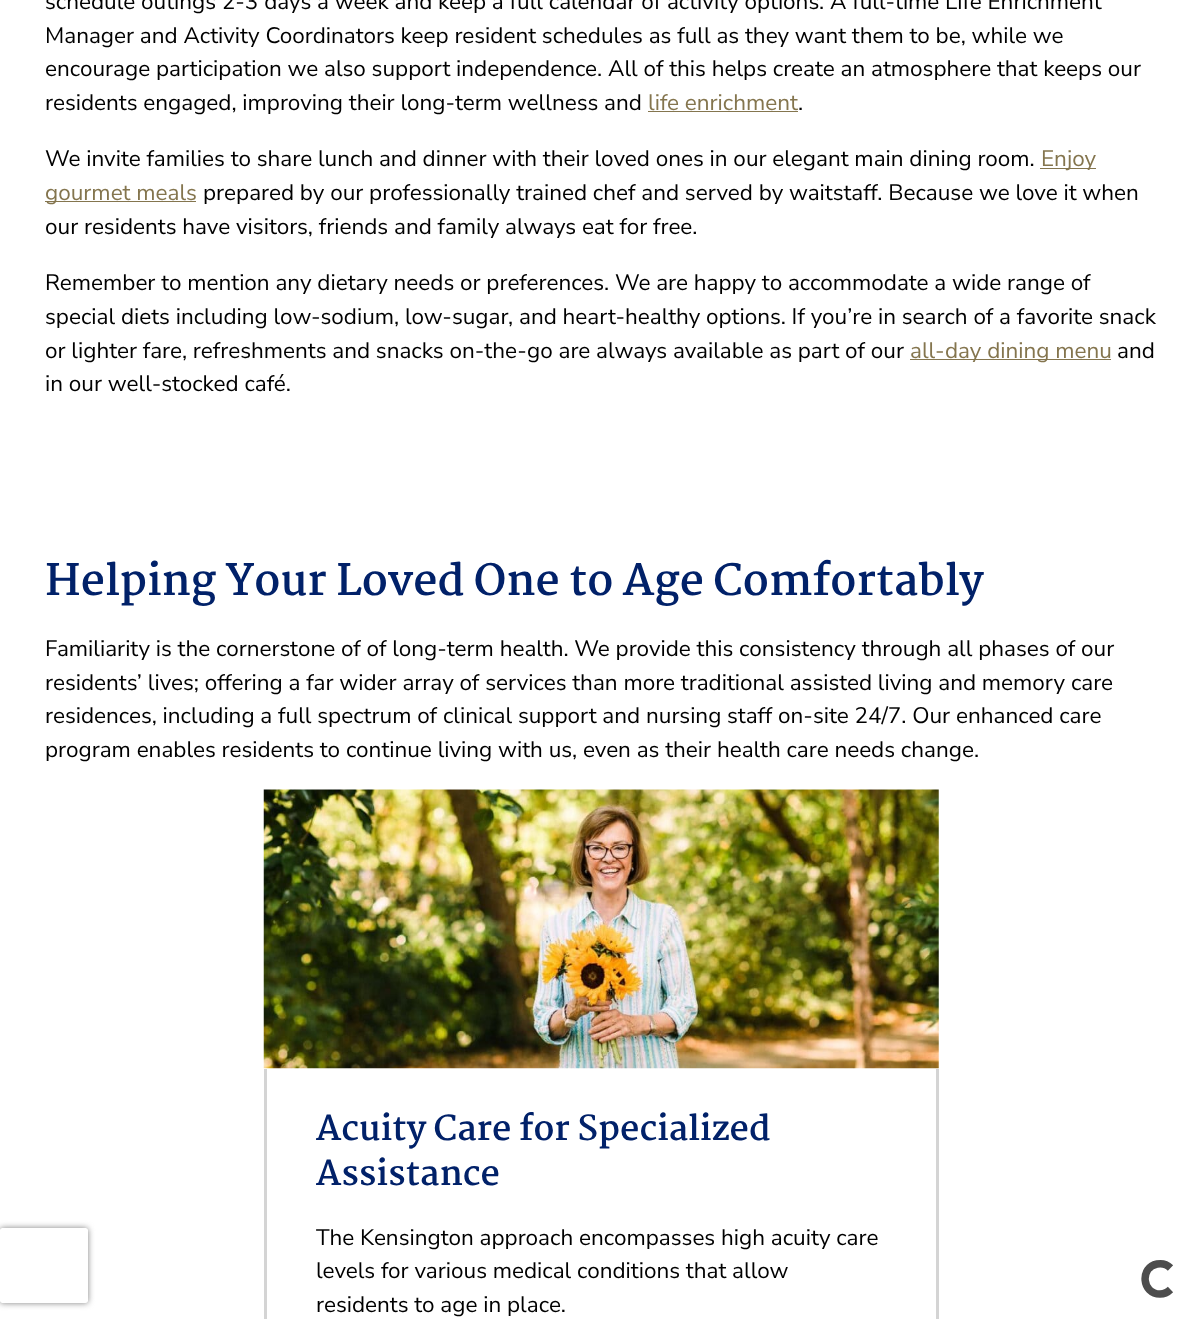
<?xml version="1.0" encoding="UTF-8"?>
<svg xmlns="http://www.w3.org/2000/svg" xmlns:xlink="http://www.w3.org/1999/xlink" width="1201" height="1319">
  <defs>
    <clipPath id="clip1"><path d="M 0 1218 h 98 v 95 h -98 z m 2.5 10 h 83 c 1.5 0 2.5 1 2.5 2.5 v 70 c 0 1.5 -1 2.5 -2.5 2.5 h -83 c -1.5 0 -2.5 -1 -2.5 -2.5 v -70 c 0 -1.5 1 -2.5 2.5 -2.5 z" clip-rule="evenodd" /></clipPath>
  </defs>
  <rect width="100%" height="100%" fill="#ffffff" />
  <rect x="648" y="111" width="150" height="1" fill="#84754e" />
  <rect x="1040" y="168" width="56" height="1" fill="#84754e" />
  <rect x="45" y="201" width="151" height="1" fill="#84754e" />
  <rect x="910" y="359" width="201" height="1" fill="#84754e" />
  <image x="263" y="789" width="676" height="280" xlink:href="image1.png" />
  <rect x="936" y="1069" width="3" height="250" fill="#d4d4d4" />
  <rect x="264" y="1069" width="3" height="250" fill="#d4d4d4" />
  <g clip-path="url(#clip1)">
    <rect y="1228" width="88" height="75" rx="2.5" fill="#808080" filter="blur(3px)" />
  </g>
  <path d="M 1170.5 1289.5 c -2.5 2.5 -6.5 4.5 -10.5 4.5 c -18 0 -20.5 -26.5 -3 -30 c 5 -1 10 0.5 13.5 4" fill="none" stroke="#4d4d4d" stroke-width="7.5" />
  <text x="45" y="9" style="font-family: Nunito Sans; font-size: 22.5px; fill: #000000">schedule outings 2-3 days a week and keep a full calendar of activity options. A full-time Life Enrichment</text>
  <text x="45" y="43" style="font-family: Nunito Sans; font-size: 22.5px; fill: #000000">Manager and Activity Coordinators keep resident schedules as full as they want them to be, while we</text>
  <text x="45" y="76" style="font-family: Nunito Sans; font-size: 22.5px; fill: #000000">encourage participation we also support independence. All of this helps create an atmosphere that keeps our</text>
  <text x="45" y="110" style="font-family: Nunito Sans; font-size: 22.5px; fill: #000000">residents engaged, improving their long-term wellness and</text>
  <text x="648" y="110" style="font-family: Nunito Sans; font-size: 22.5px; fill: #84754e">life enrichment</text>
  <text x="798" y="110" style="font-family: Nunito Sans; font-size: 22.5px; fill: #000000">.</text>
  <text x="45" y="166" style="font-family: Nunito Sans; font-size: 22.5px; fill: #000000">We invite families to share lunch and dinner with their loved ones in our elegant main dining room.</text>
  <text x="1041" y="166" style="font-family: Nunito Sans; font-size: 22.5px; fill: #84754e">Enjoy</text>
  <text x="45" y="200" style="font-family: Nunito Sans; font-size: 22.5px; fill: #84754e">gourmet meals</text>
  <text x="203" y="200" style="font-family: Nunito Sans; font-size: 22.5px; fill: #000000">prepared by our professionally trained chef and served by waitstaff. Because we love it when</text>
  <text x="45" y="234" style="font-family: Nunito Sans; font-size: 22.5px; fill: #000000">our residents have visitors, friends and family always eat for free.</text>
  <text x="45" y="290" style="font-family: Nunito Sans; font-size: 22.5px; fill: #000000">Remember to mention any dietary needs or preferences. We are happy to accommodate a wide range of</text>
  <text x="45" y="324" style="font-family: Nunito Sans; font-size: 22.5px; fill: #000000">special diets including low-sodium, low-sugar, and heart-healthy options. If you’re in search of a favorite snack</text>
  <text x="45" y="358" style="font-family: Nunito Sans; font-size: 22.5px; fill: #000000">or lighter fare, refreshments and snacks on-the-go are always available as part of our</text>
  <text x="910" y="358" style="font-family: Nunito Sans; font-size: 22.5px; fill: #84754e">all-day dining menu</text>
  <text x="1117" y="358" style="font-family: Nunito Sans; font-size: 22.5px; fill: #000000">and</text>
  <text x="45" y="391" style="font-family: Nunito Sans; font-size: 22.5px; fill: #000000">in our well-stocked café.</text>
  <text x="45" y="595" style="font-family: Martel; font-size: 42.2px; font-weight: bold; fill: #012169">Helping Your Loved One to Age Comfortably</text>
  <text x="45" y="656" style="font-family: Nunito Sans; font-size: 22.5px; fill: #000000">Familiarity is the cornerstone of of long-term health. We provide this consistency through all phases of our</text>
  <text x="45" y="690" style="font-family: Nunito Sans; font-size: 22.5px; fill: #000000">residents’ lives; offering a far wider array of services than more traditional assisted living and memory care</text>
  <text x="45" y="723" style="font-family: Nunito Sans; font-size: 22.5px; fill: #000000">residences, including a full spectrum of clinical support and nursing staff on-site 24/7. Our enhanced care</text>
  <text x="45" y="757" style="font-family: Nunito Sans; font-size: 22.5px; fill: #000000">program enables residents to continue living with us, even as their health care needs change.</text>
  <text x="316" y="1140" style="font-family: Martel; font-size: 33.75px; font-weight: bold; fill: #012169">Acuity Care for Specialized</text>
  <text x="316" y="1185" style="font-family: Martel; font-size: 33.75px; font-weight: bold; fill: #012169">Assistance</text>
  <text x="316" y="1245" style="font-family: Nunito Sans; font-size: 22.5px; fill: #000000">The Kensington approach encompasses high acuity care</text>
  <text x="316" y="1278" style="font-family: Nunito Sans; font-size: 22.5px; fill: #000000">levels for various medical conditions that allow</text>
  <text x="316" y="1312" style="font-family: Nunito Sans; font-size: 22.5px; fill: #000000">residents to age in place.</text>
</svg>
